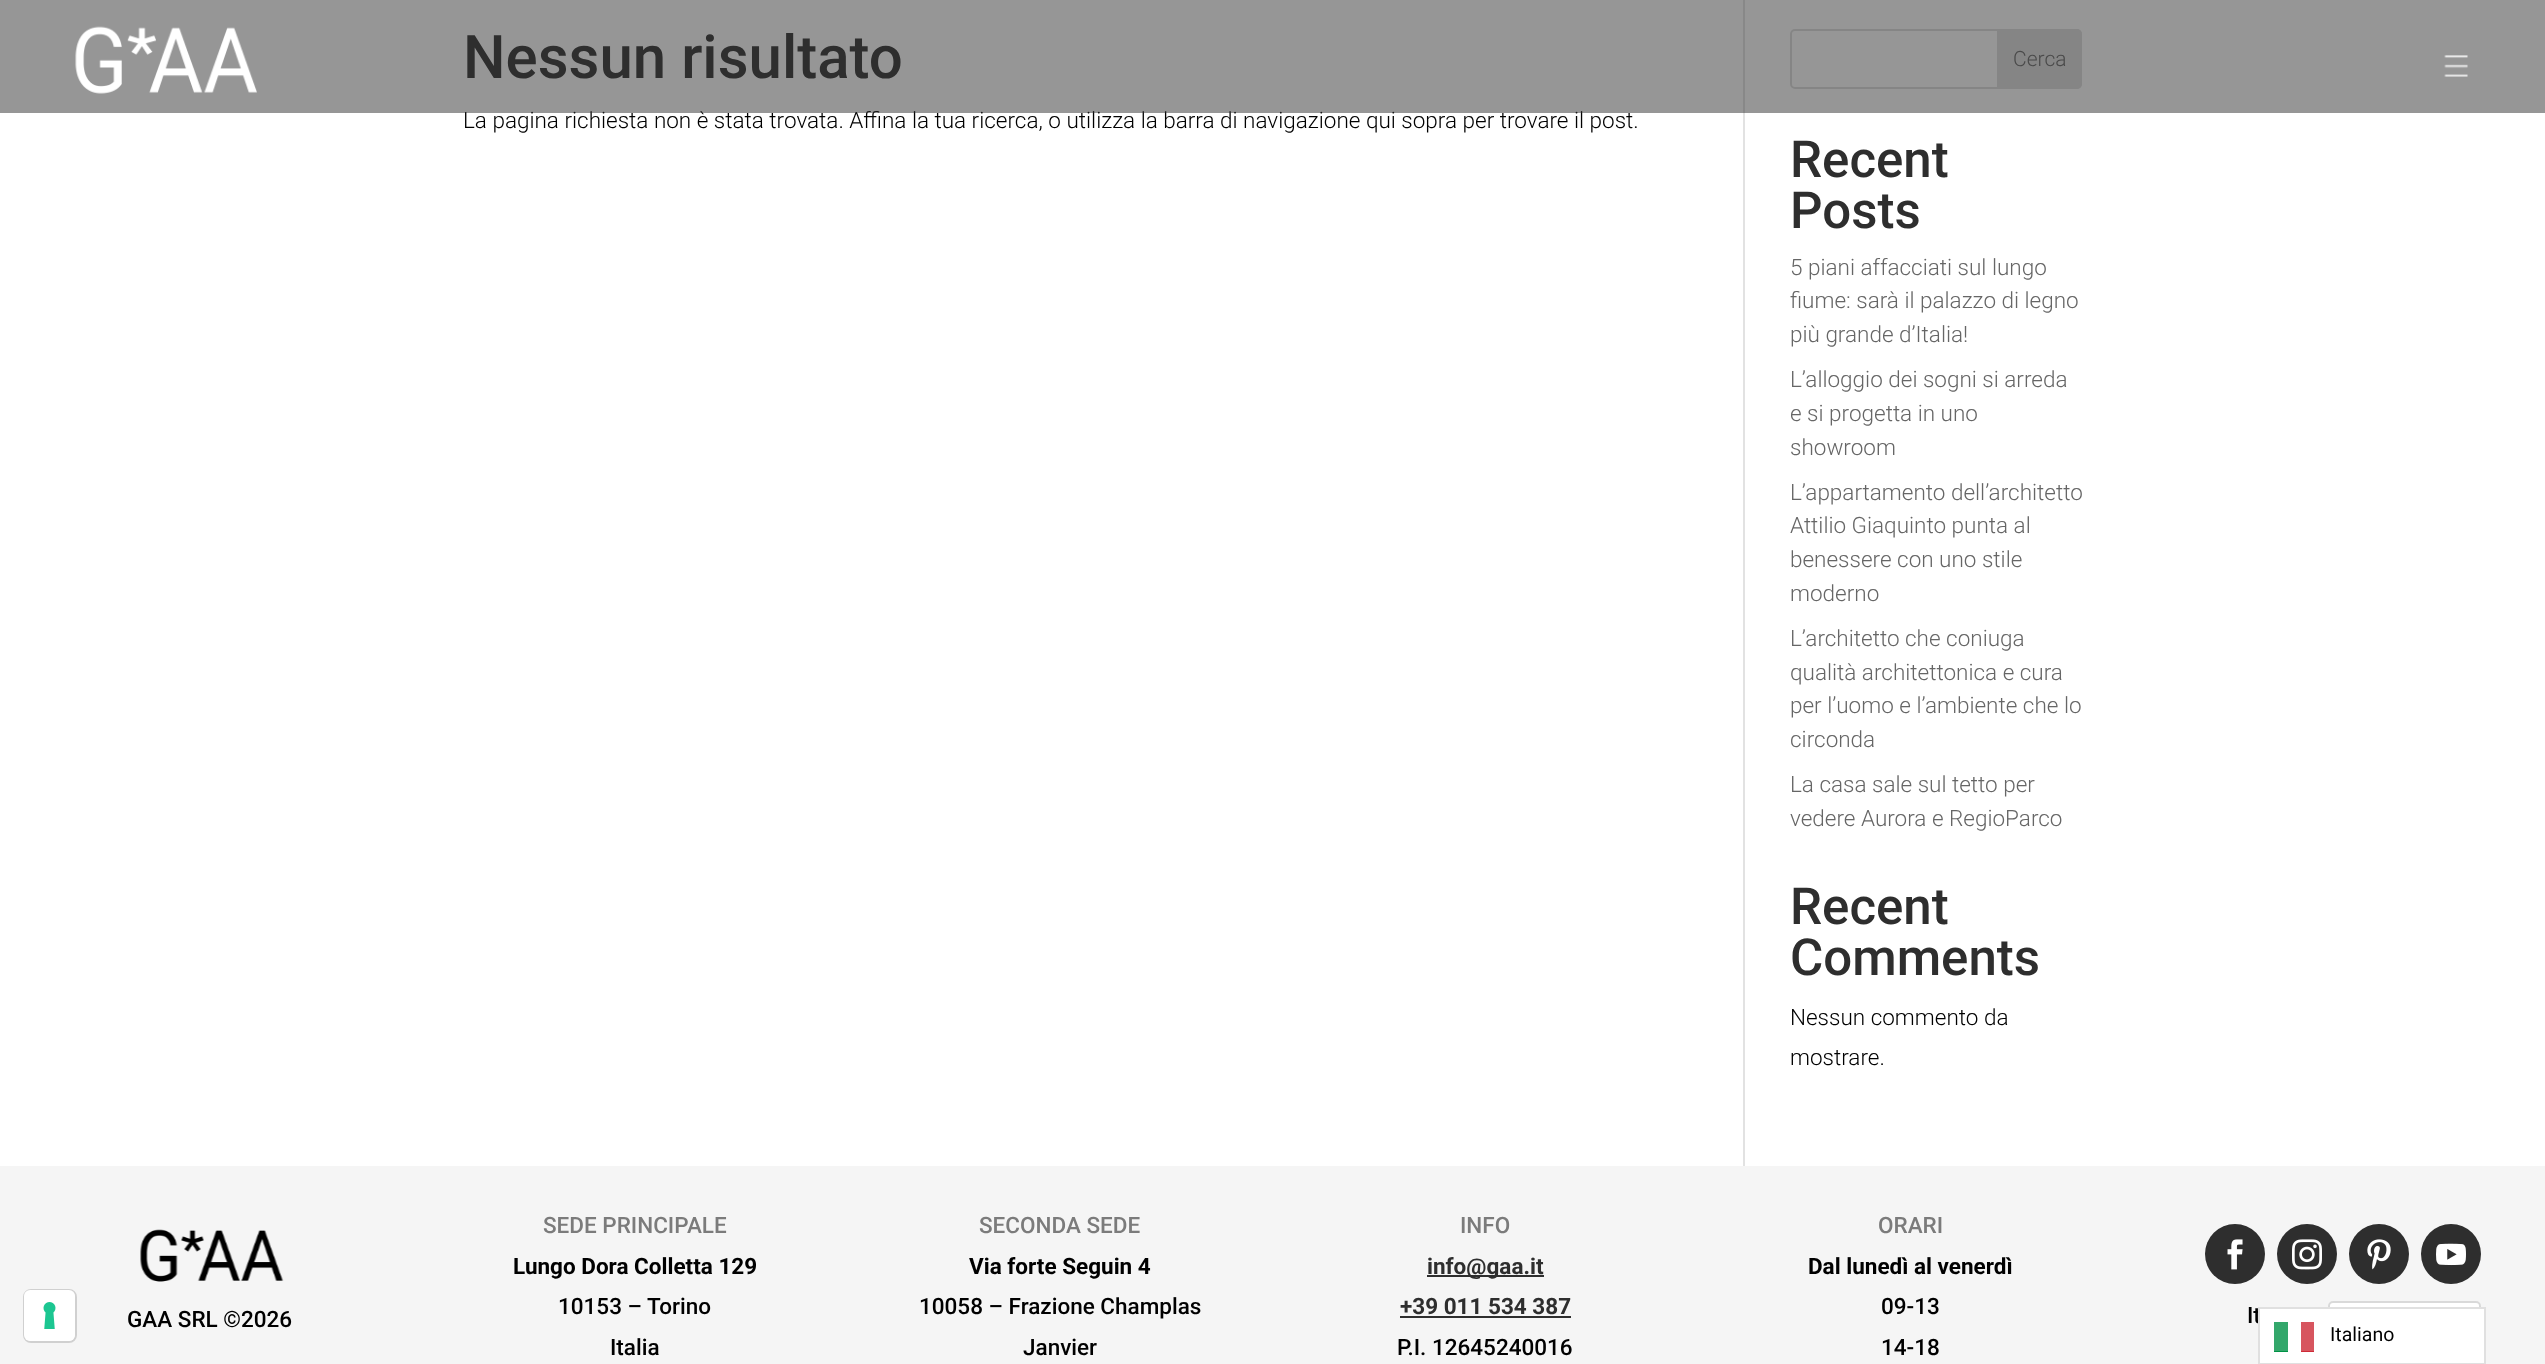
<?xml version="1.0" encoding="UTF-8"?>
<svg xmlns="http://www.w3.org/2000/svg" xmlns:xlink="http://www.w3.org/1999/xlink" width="2545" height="1364">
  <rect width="100%" height="100%" fill="#ffffff" />
  <rect y="1166" width="2545" height="198" fill="#f5f5f5" />
  <rect x="24" y="1290" width="52" height="52" rx="7" fill="none" stroke="#d0d0d0" stroke-width="2" />
  <rect x="24" y="1290" width="51" height="51" rx="6" fill="#ffffff" />
  <image x="43" y="1302" width="13" height="27" xlink:href="image1.png" />
  <rect x="1743" width="2" height="1166" fill="#e2e2e2" />
  <rect x="1791" y="30" width="290" height="58" rx="4" fill="none" stroke="#dddddd" stroke-width="2" />
  <path d="M 1998 30 h 79 c 2 0 4 2 4 4 v 50 c 0 2 -2 4 -4 4 h -79 z" fill="#dddddd" stroke="#dddddd" stroke-width="2" />
  <image x="140" y="1229" width="144" height="53" xlink:href="image4.png" />
  <rect x="1427" y="1275" width="117" height="2" fill="#2e2e2e" />
  <rect x="1400" y="1316" width="171" height="2" fill="#2e2e2e" />
  <circle cx="2235" cy="1254" r="30" fill="#2e2e2e" />
  <image x="2227" y="1239" width="16" height="31" xlink:href="image5.png" />
  <circle cx="2307" cy="1254" r="30" fill="#2e2e2e" />
  <image x="2292" y="1239" width="30" height="31" xlink:href="image6.png" />
  <circle cx="2379" cy="1254" r="30" fill="#2e2e2e" />
  <image x="2367" y="1239" width="24" height="31" xlink:href="image7.png" />
  <circle cx="2451" cy="1254" r="30" fill="#2e2e2e" />
  <image x="2436" y="1243" width="30" height="23" xlink:href="image8.png" />
  <rect x="2328" y="1301" width="153" height="33" rx="5" fill="#ffffff" />
  <rect x="2329" y="1302" width="151" height="31" rx="4" fill="none" stroke="#000000" stroke-opacity="0.15" stroke-width="2" />
  <text x="463" y="78" style="font-family: Roboto; font-size: 60px; font-weight: 500; fill: #2e2e2e">Nessun risultato</text>
  <text x="463" y="128" style="font-family: Roboto; font-size: 22.5px; font-weight: 300; fill: #000000">La pagina richiesta non è stata trovata. Affina la tua ricerca, o utilizza la barra di navigazione qui sopra per trovare il post.</text>
  <text x="2013" y="66" style="font-family: Roboto; font-size: 21px; font-weight: 300; fill: #666666">Cerca</text>
  <rect width="2545" height="113" fill="#2e2e2e" fill-opacity="0.5" />
  <image x="2444" y="55" width="24" height="22" xlink:href="image3.png" />
  <image x="75" y="26" width="182" height="68" xlink:href="image2.png" />
  <text x="1790" y="177" style="font-family: Roboto; font-size: 51px; font-weight: 500; fill: #2e2e2e">Recent</text>
  <text x="1790" y="228" style="font-family: Roboto; font-size: 51px; font-weight: 500; fill: #2e2e2e">Posts</text>
  <text x="1790" y="275" style="font-family: Roboto; font-size: 22.5px; font-weight: 300; fill: #666666">5 piani affacciati sul lungo</text>
  <text x="1790" y="308" style="font-family: Roboto; font-size: 22.5px; font-weight: 300; fill: #666666">fiume: sarà il palazzo di legno</text>
  <text x="1790" y="342" style="font-family: Roboto; font-size: 22.5px; font-weight: 300; fill: #666666">più grande d’Italia!</text>
  <text x="1790" y="387" style="font-family: Roboto; font-size: 22.5px; font-weight: 300; fill: #666666">L’alloggio dei sogni si arreda</text>
  <text x="1790" y="421" style="font-family: Roboto; font-size: 22.5px; font-weight: 300; fill: #666666">e si progetta in uno</text>
  <text x="1790" y="455" style="font-family: Roboto; font-size: 22.5px; font-weight: 300; fill: #666666">showroom</text>
  <text x="1790" y="500" style="font-family: Roboto; font-size: 22.5px; font-weight: 300; fill: #666666">L’appartamento dell’architetto</text>
  <text x="1790" y="533" style="font-family: Roboto; font-size: 22.5px; font-weight: 300; fill: #666666">Attilio Giaquinto punta al</text>
  <text x="1790" y="567" style="font-family: Roboto; font-size: 22.5px; font-weight: 300; fill: #666666">benessere con uno stile</text>
  <text x="1790" y="601" style="font-family: Roboto; font-size: 22.5px; font-weight: 300; fill: #666666">moderno</text>
  <text x="1790" y="646" style="font-family: Roboto; font-size: 22.5px; font-weight: 300; fill: #666666">L’architetto che coniuga</text>
  <text x="1790" y="680" style="font-family: Roboto; font-size: 22.5px; font-weight: 300; fill: #666666">qualità architettonica e cura</text>
  <text x="1790" y="713" style="font-family: Roboto; font-size: 22.5px; font-weight: 300; fill: #666666">per l’uomo e l’ambiente che lo</text>
  <text x="1790" y="747" style="font-family: Roboto; font-size: 22.5px; font-weight: 300; fill: #666666">circonda</text>
  <text x="1790" y="792" style="font-family: Roboto; font-size: 22.5px; font-weight: 300; fill: #666666">La casa sale sul tetto per</text>
  <text x="1790" y="826" style="font-family: Roboto; font-size: 22.5px; font-weight: 300; fill: #666666">vedere Aurora e RegioParco</text>
  <text x="1790" y="924" style="font-family: Roboto; font-size: 51px; font-weight: 500; fill: #2e2e2e">Recent</text>
  <text x="1790" y="975" style="font-family: Roboto; font-size: 51px; font-weight: 500; fill: #2e2e2e">Comments</text>
  <text x="1790" y="1025" style="font-family: Roboto; font-size: 22.5px; font-weight: 300; fill: #000000">Nessun commento da</text>
  <text x="1790" y="1065" style="font-family: Roboto; font-size: 22.5px; font-weight: 300; fill: #000000">mostrare.</text>
  <text x="127" y="1327" style="font-family: Roboto; font-size: 22.5px; font-weight: 500; fill: #000000">GAA SRL ©2026</text>
  <text x="543" y="1233" style="font-family: Roboto; font-size: 22.5px; font-weight: 500; fill: #7b7b7b">SEDE PRINCIPALE</text>
  <text x="513" y="1274" style="font-family: Roboto; font-size: 22.5px; font-weight: bold; fill: #000000">Lungo Dora Colletta 129</text>
  <text x="558" y="1314" style="font-family: Roboto; font-size: 22.5px; font-weight: 500; fill: #000000">10153 – Torino</text>
  <text x="610" y="1355" style="font-family: Roboto; font-size: 22.5px; font-weight: 500; fill: #000000">Italia</text>
  <text x="979" y="1233" style="font-family: Roboto; font-size: 22.5px; font-weight: 500; fill: #7b7b7b">SECONDA SEDE</text>
  <text x="969" y="1274" style="font-family: Roboto; font-size: 22.5px; font-weight: bold; fill: #000000">Via forte Seguin 4</text>
  <text x="919" y="1314" style="font-family: Roboto; font-size: 22.5px; font-weight: 500; fill: #000000">10058 – Frazione Champlas</text>
  <text x="1023" y="1355" style="font-family: Roboto; font-size: 22.5px; font-weight: 500; fill: #000000">Janvier</text>
  <text x="1460" y="1233" style="font-family: Roboto; font-size: 22.5px; font-weight: 500; fill: #7b7b7b">INFO</text>
  <text x="1427" y="1274" style="font-family: Roboto; font-size: 22.5px; font-weight: bold; fill: #2e2e2e">info@gaa.it</text>
  <text x="1400" y="1314" style="font-family: Roboto; font-size: 22.5px; font-weight: bold; fill: #2e2e2e">+39 011 534 387</text>
  <text x="1397" y="1355" style="font-family: Roboto; font-size: 22.5px; font-weight: 500; fill: #000000">P.I. 12645240016</text>
  <text x="1878" y="1233" style="font-family: Roboto; font-size: 22.5px; font-weight: 500; fill: #7b7b7b">ORARI</text>
  <text x="1808" y="1274" style="font-family: Roboto; font-size: 22.5px; font-weight: bold; fill: #000000">Dal lunedì al venerdì</text>
  <text x="1881" y="1314" style="font-family: Roboto; font-size: 22.5px; font-weight: 500; fill: #000000">09-13</text>
  <text x="1881" y="1355" style="font-family: Roboto; font-size: 22.5px; font-weight: 500; fill: #000000">14-18</text>
  <text x="2247" y="1323" style="font-family: Roboto; font-size: 22.5px; font-weight: 500; fill: #000000">It</text>
  <rect x="2259" y="1308" width="226" height="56" fill="#ffffff" stroke="#e0e0e0" stroke-width="2" />
  <rect x="2274" y="1322" width="14" height="30" fill="#009246" />
  <rect x="2301" y="1322" width="13" height="30" fill="#ce2b37" />
  <rect x="2274" y="1322" width="40" height="29" fill="#ffffff" fill-opacity="0.2" />
  <text x="2330" y="1341" style="font-family: Roboto; font-size: 19.5px; fill: #000000">Italiano</text>
</svg>
